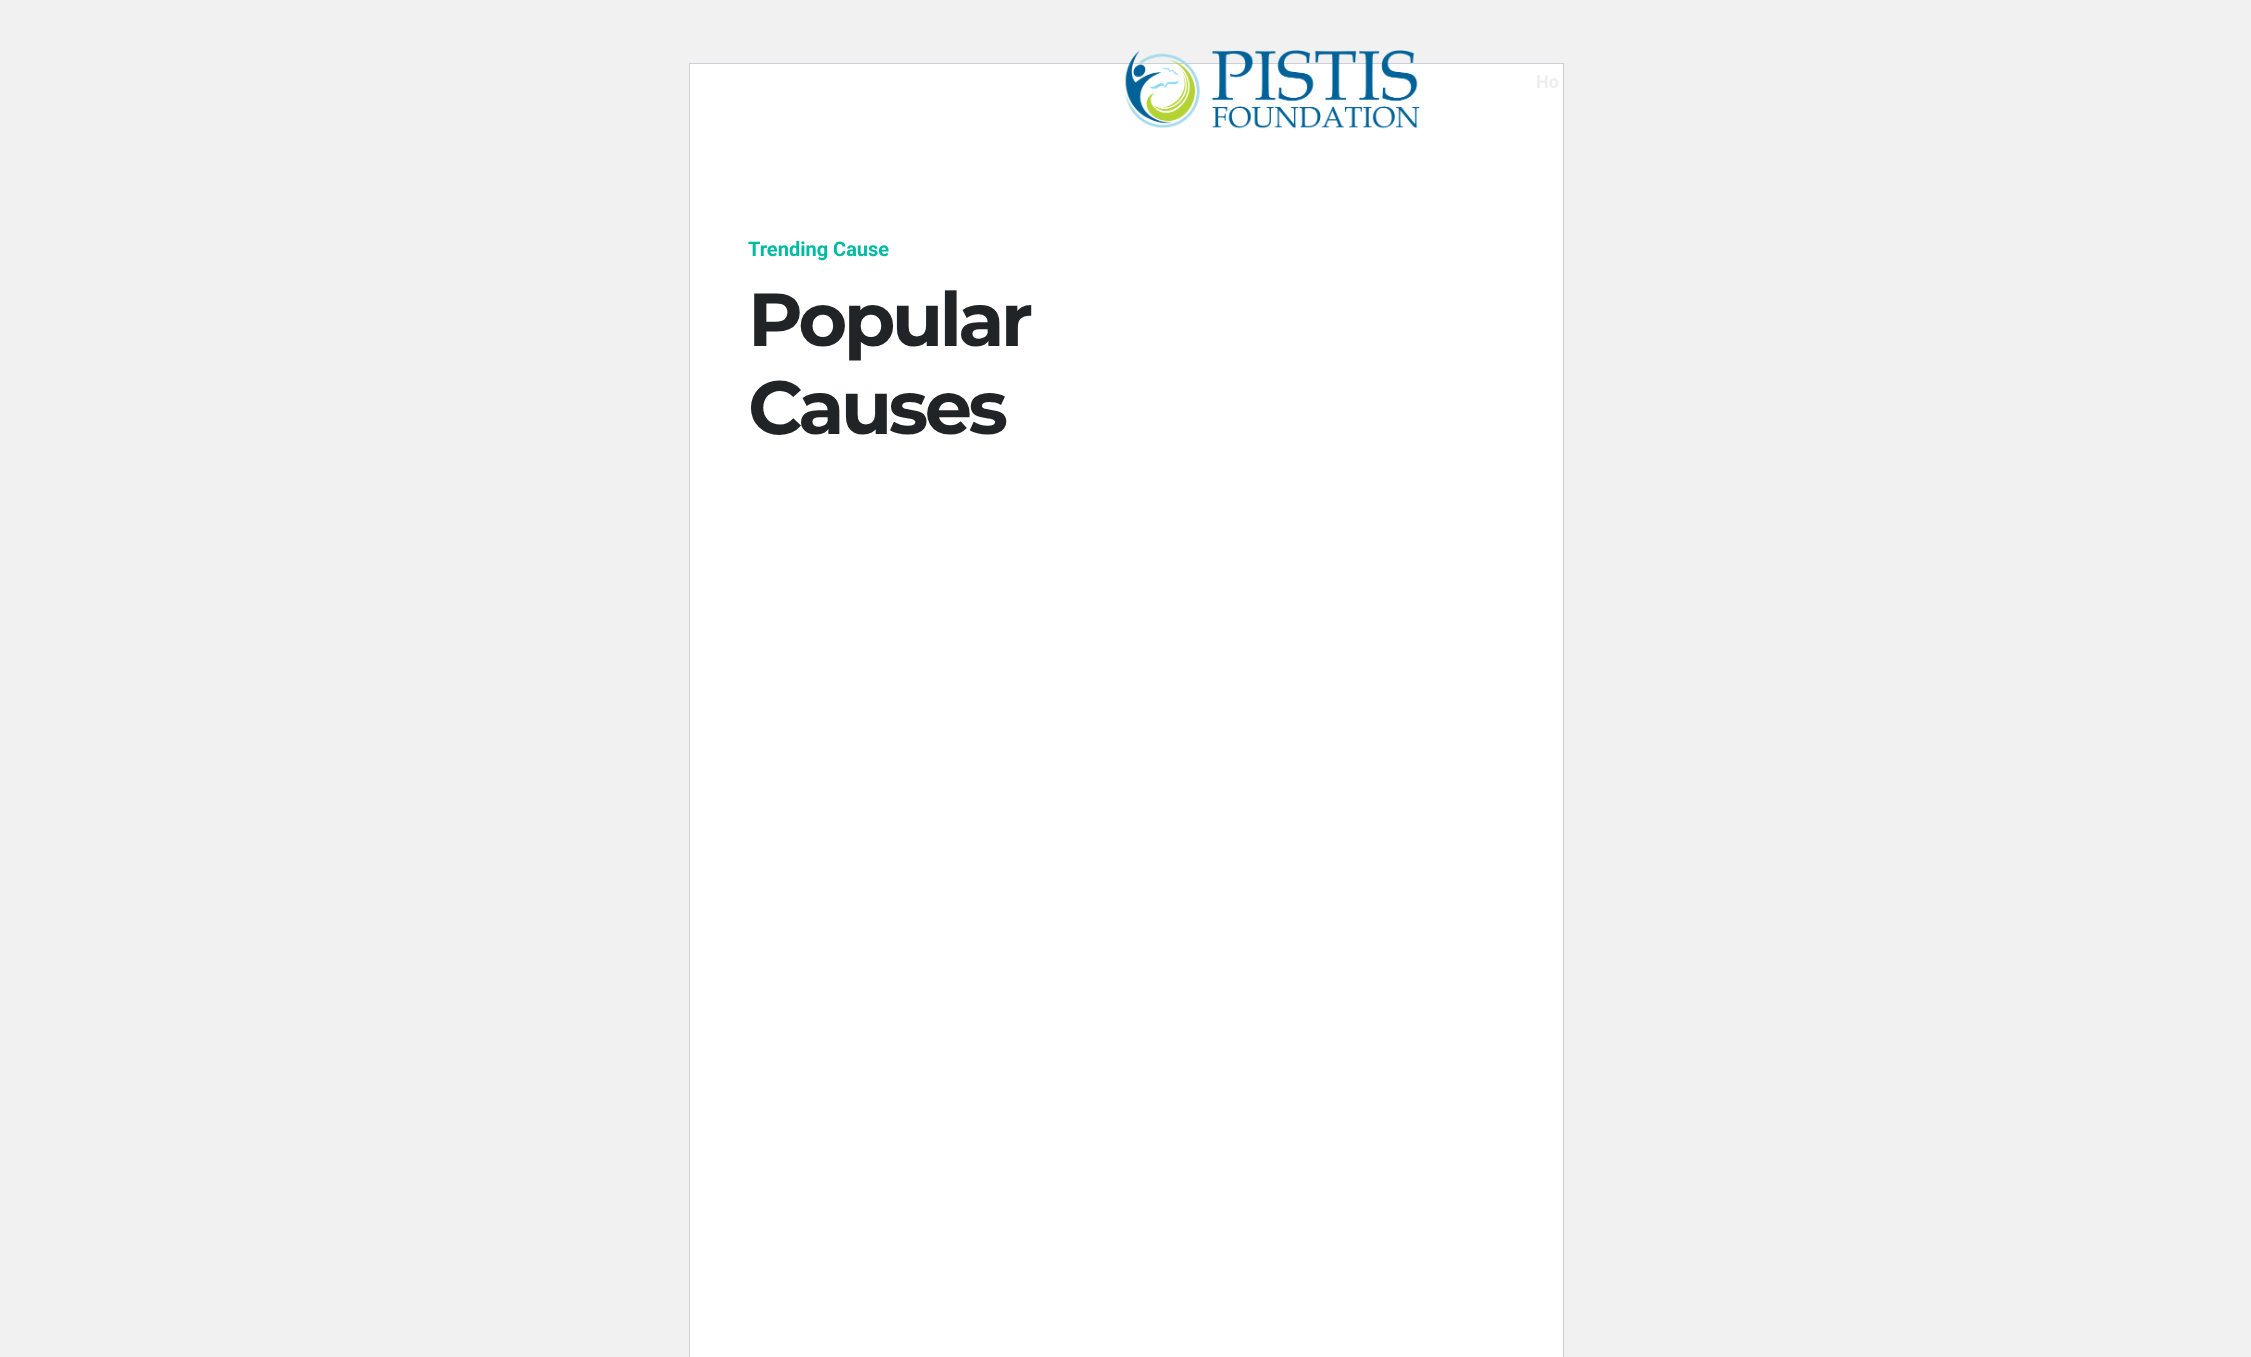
<?xml version="1.0" encoding="UTF-8"?>
<svg xmlns="http://www.w3.org/2000/svg" xmlns:xlink="http://www.w3.org/1999/xlink" width="2251" height="1357">
  <rect width="100%" height="100%" fill="#f1f1f1" />
  <rect x="689.5" y="63.5" width="874" height="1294" fill="#ffffff" stroke="#ccd0d4" />
  <image x="1125" y="50" width="295" height="79" xlink:href="image1.png" />
  <text x="1536" y="88" style="font-family: Roboto; font-size: 18px; font-weight: bold; fill: #eeeeee">Ho</text>
  <text x="748" y="256" style="font-family: Roboto; font-size: 20px; font-weight: bold; fill: #00baa3">Trending Cause</text>
  <text x="748" y="346" style="font-family: Montserrat; font-size: 75px; font-weight: bold; letter-spacing: -3.75px; fill: #202426">Popular</text>
  <text x="748" y="434" style="font-family: Montserrat; font-size: 75px; font-weight: bold; letter-spacing: -3.75px; fill: #202426">Causes</text>
</svg>
